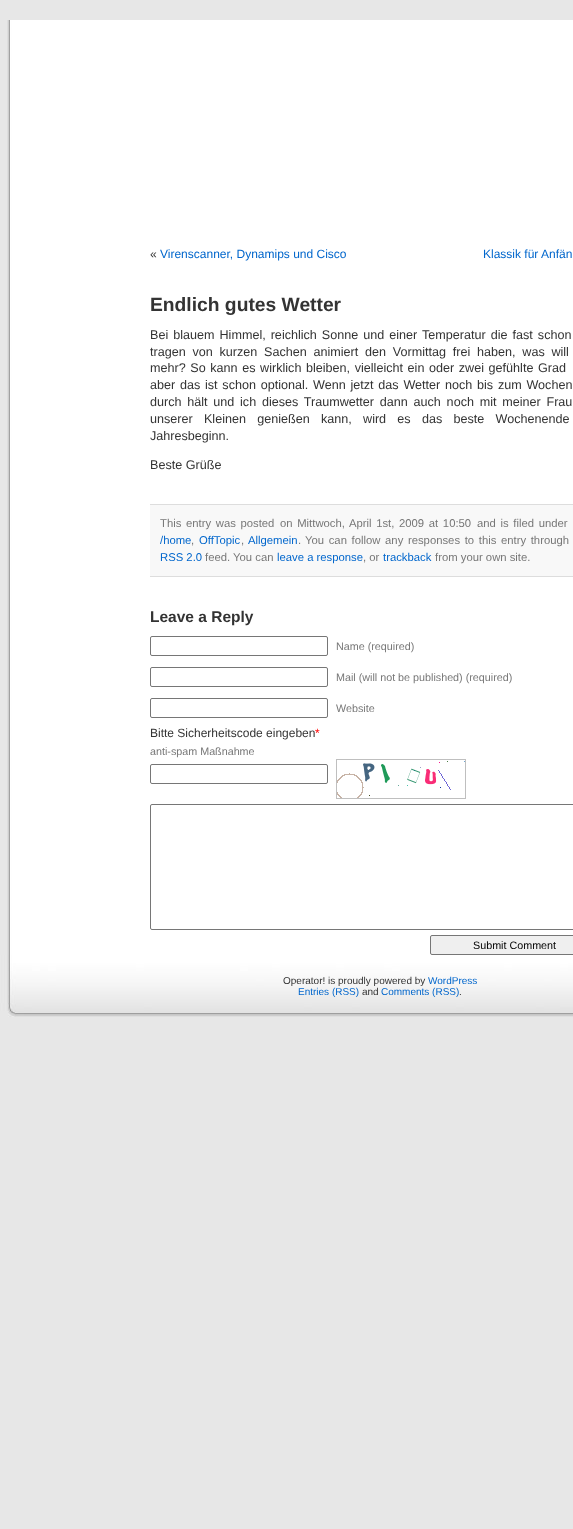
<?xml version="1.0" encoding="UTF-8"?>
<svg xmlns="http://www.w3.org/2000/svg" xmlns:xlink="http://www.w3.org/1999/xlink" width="573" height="1529">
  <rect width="100%" height="100%" fill="#e7e7e7" />
  <image x="7" y="20" width="566" height="935" xlink:href="image1.png" />
  <rect x="150" y="505" width="423" height="71" fill="#f8f8f8" />
  <rect x="150" y="504" width="423" height="1" fill="#dddddd" />
  <rect x="150" y="576" width="423" height="1" fill="#dddddd" />
  <rect x="150.5" y="636.5" width="177" height="19" rx="1.5" fill="none" stroke="#767676" />
  <rect x="150.5" y="667.5" width="177" height="19" rx="1.5" fill="none" stroke="#767676" />
  <rect x="150.5" y="698.5" width="177" height="19" rx="1.5" fill="none" stroke="#767676" />
  <rect x="150.5" y="764.5" width="177" height="19" rx="1.5" fill="none" stroke="#767676" />
  <image x="336" y="759" width="130" height="40" xlink:href="image2.png" />
  <rect x="150.5" y="804.5" width="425" height="125" rx="1.5" fill="none" stroke="#767676" />
  <rect x="430.5" y="935.5" width="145" height="19" rx="1.5" fill="#efefef" stroke="#767676" />
  <image x="0" y="955" width="573" height="62" xlink:href="image3.png" />
  <text x="150" y="258" style="font-family: Liberation Sans; font-size: 12px; fill: #333333">«</text>
  <text x="160" y="258" style="font-family: Liberation Sans; font-size: 12px; fill: #0066cc">Virenscanner, Dynamips und Cisco</text>
  <text x="483" y="258" style="font-family: Liberation Sans; font-size: 12px; fill: #0066cc">Klassik für Anfän</text>
  <text x="150" y="311" style="font-family: Liberation Sans; font-size: 19.25px; font-weight: bold; fill: #333333">Endlich gutes Wetter</text>
  <text x="150" y="339" word-spacing="1.5" style="font-family: Liberation Sans; font-size: 12.6px; fill: #333333">Bei blauem Himmel, reichlich Sonne und einer Temperatur die fast schon</text>
  <text x="150" y="356" word-spacing="3.25" style="font-family: Liberation Sans; font-size: 12.6px; fill: #333333">tragen von kurzen Sachen animiert den Vormittag frei haben, was will</text>
  <text x="150" y="372" word-spacing="1.1" style="font-family: Liberation Sans; font-size: 12.6px; fill: #333333">mehr? So kann es wirklich bleiben, vielleicht ein oder zwei gefühlte Grad</text>
  <text x="150" y="389" word-spacing="1.25" style="font-family: Liberation Sans; font-size: 12.6px; fill: #333333">aber das ist schon optional. Wenn jetzt das Wetter noch bis zum Wochen</text>
  <text x="150" y="406" word-spacing="2.25" style="font-family: Liberation Sans; font-size: 12.6px; fill: #333333">durch hält und ich dieses Traumwetter dann auch noch mit meiner Frau</text>
  <text x="150" y="423" word-spacing="7.75" style="font-family: Liberation Sans; font-size: 12.6px; fill: #333333">unserer Kleinen genießen kann, wird es das beste Wochenende</text>
  <text x="150" y="440" style="font-family: Liberation Sans; font-size: 12.6px; fill: #333333">Jahresbeginn.</text>
  <text x="150" y="469" style="font-family: Liberation Sans; font-size: 12.6px; fill: #333333">Beste Grüße</text>
  <text x="160" y="527" word-spacing="1.5" style="font-family: Liberation Sans; font-size: 11.3px; fill: #777777">This entry was posted</text>
  <text x="280" y="527" word-spacing="1.5" style="font-family: Liberation Sans; font-size: 11.3px; fill: #777777">on Mittwoch, April 1st, 2009 at 10:50</text>
  <text x="477" y="527" word-spacing="1.5" style="font-family: Liberation Sans; font-size: 11.3px; fill: #777777">and is filed under</text>
  <text x="160" y="544" style="font-family: Liberation Sans; font-size: 11.3px; fill: #0066cc">/home</text>
  <text x="191" y="544" style="font-family: Liberation Sans; font-size: 11.3px; fill: #777777">,</text>
  <text x="199" y="544" style="font-family: Liberation Sans; font-size: 11.3px; fill: #0066cc">OffTopic</text>
  <text x="241" y="544" style="font-family: Liberation Sans; font-size: 11.3px; fill: #777777">,</text>
  <text x="248" y="544" style="font-family: Liberation Sans; font-size: 11.3px; fill: #0066cc">Allgemein</text>
  <text x="298" y="544" style="font-family: Liberation Sans; font-size: 11.3px; fill: #777777">.</text>
  <text x="305" y="544" word-spacing="1.5" style="font-family: Liberation Sans; font-size: 11.3px; fill: #777777">You can follow any responses to this entry through</text>
  <text x="160" y="561" style="font-family: Liberation Sans; font-size: 11.3px; fill: #0066cc">RSS 2.0</text>
  <text x="205" y="561" style="font-family: Liberation Sans; font-size: 11.3px; fill: #777777">feed. You can</text>
  <text x="277" y="561" style="font-family: Liberation Sans; font-size: 11.3px; fill: #0066cc">leave a response</text>
  <text x="363" y="561" style="font-family: Liberation Sans; font-size: 11.3px; fill: #777777">, or</text>
  <text x="383" y="561" style="font-family: Liberation Sans; font-size: 11.3px; fill: #0066cc">trackback</text>
  <text x="435" y="561" style="font-family: Liberation Sans; font-size: 11.3px; fill: #777777">from your own site.</text>
  <text x="150" y="622" style="font-family: Liberation Sans; font-size: 15.5px; font-weight: bold; fill: #333333">Leave a Reply</text>
  <text x="336" y="650" style="font-family: Liberation Sans; font-size: 10.75px; fill: #777777">Name (required)</text>
  <text x="336" y="681" style="font-family: Liberation Sans; font-size: 10.75px; fill: #777777">Mail (will not be published) (required)</text>
  <text x="336" y="712" style="font-family: Liberation Sans; font-size: 10.75px; fill: #777777">Website</text>
  <text x="150" y="737" style="font-family: Liberation Sans; font-size: 12px; fill: #333333">Bitte Sicherheitscode eingeben</text>
  <text x="315" y="737" style="font-family: Liberation Sans; font-size: 12px; fill: #ff0000">*</text>
  <text x="150" y="755" style="font-family: Liberation Sans; font-size: 10.75px; fill: #777777">anti-spam Maßnahme</text>
  <text x="473" y="949" style="font-family: Liberation Sans; font-size: 10.75px; fill: #000000">Submit Comment</text>
  <text x="283" y="984" style="font-family: Liberation Sans; font-size: 10px; fill: #333333">Operator! is proudly powered by</text>
  <text x="428" y="984" style="font-family: Liberation Sans; font-size: 10px; fill: #0066cc">WordPress</text>
  <text x="298" y="995" style="font-family: Liberation Sans; font-size: 10px; fill: #0066cc">Entries (RSS)</text>
  <text x="362" y="995" style="font-family: Liberation Sans; font-size: 10px; fill: #333333">and</text>
  <text x="381" y="995" style="font-family: Liberation Sans; font-size: 10px; fill: #0066cc">Comments (RSS)</text>
  <text x="459" y="995" style="font-family: Liberation Sans; font-size: 10px; fill: #333333">.</text>
</svg>
